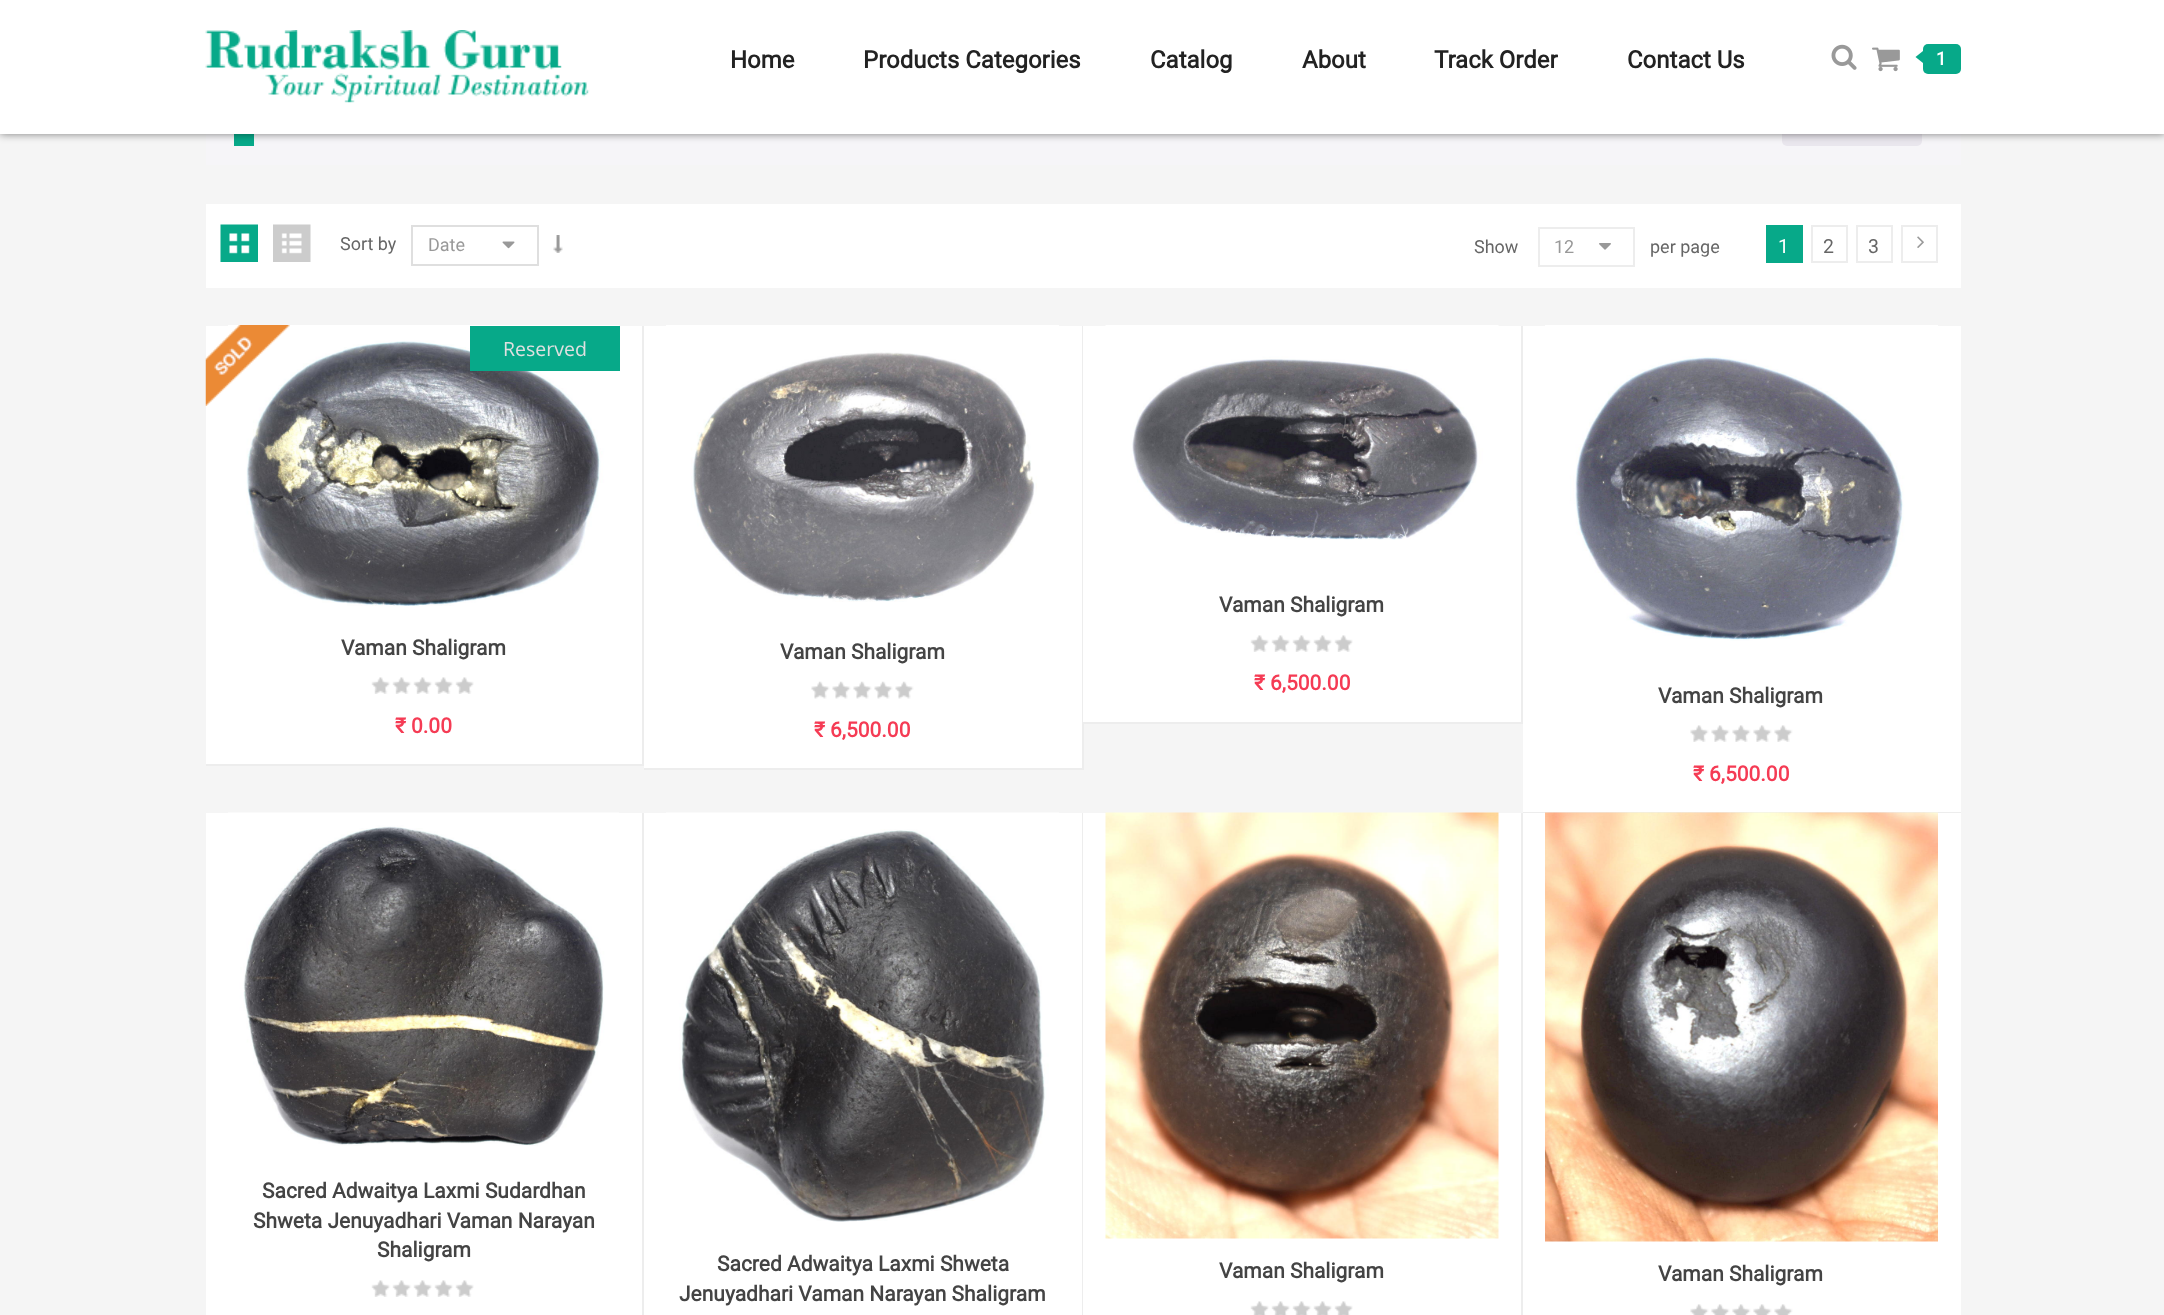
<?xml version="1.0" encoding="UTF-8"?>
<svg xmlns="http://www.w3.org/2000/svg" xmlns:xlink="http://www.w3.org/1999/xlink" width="2164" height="1315">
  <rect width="100%" height="100%" fill="#f5f5f5" />
  <rect x="206" y="134" width="1755" height="31" fill="#f6f5f8" />
  <rect x="234" y="134" width="20" height="12" fill="#07a989" />
  <rect x="1782" y="96" width="140" height="50" rx="5" fill="#e9e6ed" />
  <rect width="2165" height="134" fill="#000000" fill-opacity="0.5" filter="blur(4px)" />
  <rect width="2164" height="134" fill="#ffffff" />
  <image x="205" y="30" width="385" height="73" xlink:href="image1.png" />
  <image x="1831" y="44" width="26" height="26" xlink:href="image2.png" />
  <image x="1872" y="47" width="28" height="25" xlink:href="image3.png" />
  <rect x="1923" y="44" width="38" height="30" rx="5" fill="#07a989" />
  <path d="M 1923 51 v 12 l -7.5 -6 z" fill="#07a989" />
  <rect x="206" y="204" width="1755" height="84" fill="#ffffff" />
  <image x="220" y="224" width="38" height="38" xlink:href="image4.png" />
  <image x="273" y="224" width="38" height="38" xlink:href="image5.png" />
  <rect x="412" y="226" width="126" height="39" fill="none" stroke="#dfdfdf" stroke-width="2" />
  <image x="502" y="241" width="13" height="8" xlink:href="image6.png" />
  <image x="553" y="235" width="10" height="18" xlink:href="image7.png" />
  <rect x="1539" y="228" width="95" height="38" fill="none" stroke="#ededed" stroke-width="2" />
  <image x="1599" y="243" width="12" height="7" xlink:href="image8.png" />
  <rect x="1766" y="225" width="37" height="38" fill="#07a989" />
  <rect x="1812" y="226" width="35" height="36" fill="none" stroke="#ededed" stroke-width="2" />
  <rect x="1857" y="226" width="35" height="36" fill="none" stroke="#ededed" stroke-width="2" />
  <rect x="1902" y="226" width="35" height="36" fill="none" stroke="#ededed" stroke-width="2" />
  <image x="1917" y="236" width="7" height="12" xlink:href="image9.png" />
  <rect x="206" y="326" width="436" height="438" fill="#ffffff" />
  <rect x="642" y="326" width="2" height="439" fill="#ededed" />
  <rect x="206" y="764" width="438" height="2" fill="#ededed" />
  <image x="228" y="325" width="392" height="281" xlink:href="image11.png" />
  <image x="205" y="325" width="85" height="81" xlink:href="image10.png" />
  <rect x="470" y="326" width="150" height="45" fill="#07a989" />
  <image x="371" y="677" width="103" height="17" xlink:href="image12.png" />
  <rect x="644" y="326" width="438" height="442" fill="#ffffff" />
  <rect x="1082" y="326" width="2" height="444" fill="#ededed" />
  <rect x="644" y="768" width="439" height="2" fill="#ededed" />
  <image x="666" y="325" width="393" height="277" xlink:href="image13.png" />
  <image x="811" y="681" width="103" height="18" xlink:href="image14.png" />
  <rect x="1083" y="326" width="438" height="396" fill="#ffffff" />
  <rect x="1521" y="326" width="2" height="397" fill="#ededed" />
  <rect x="1083" y="722" width="440" height="2" fill="#ededed" />
  <image x="1105" y="325" width="394" height="215" xlink:href="image15.png" />
  <image x="1250" y="635" width="103" height="17" xlink:href="image16.png" />
  <rect x="1523" y="326" width="438" height="486" fill="#ffffff" />
  <rect x="1523" y="812" width="438" height="1" fill="#ededed" />
  <image x="1545" y="325" width="393" height="316" xlink:href="image17.png" />
  <image x="1690" y="725" width="103" height="17" xlink:href="image18.png" />
  <rect x="206" y="813" width="436" height="502" fill="#ffffff" />
  <rect x="642" y="813" width="2" height="502" fill="#ededed" />
  <image x="228" y="812" width="391" height="334" xlink:href="image19.png" />
  <image x="371" y="1280" width="103" height="17" xlink:href="image20.png" />
  <rect x="644" y="813" width="438" height="502" fill="#ffffff" />
  <rect x="1082" y="813" width="1" height="502" fill="#ededed" />
  <image x="666" y="812" width="393" height="410" xlink:href="image21.png" />
  <rect x="1083" y="813" width="438" height="502" fill="#ffffff" />
  <rect x="1521" y="813" width="2" height="502" fill="#ededed" />
  <image x="1105" y="812" width="394" height="427" xlink:href="image22.png" />
  <image x="1250" y="1301" width="103" height="14" xlink:href="image23.png" />
  <rect x="1523" y="813" width="438" height="502" fill="#ffffff" />
  <image x="1545" y="812" width="393" height="430" xlink:href="image24.png" />
  <image x="1690" y="1304" width="103" height="11" xlink:href="image25.png" />
  <text x="730" y="68" style="font-family: Roboto; font-size: 24px; font-weight: bold; fill: #222222">Home</text>
  <text x="863" y="68" style="font-family: Roboto; font-size: 24px; font-weight: bold; fill: #222222">Products Categories</text>
  <text x="1150" y="68" style="font-family: Roboto; font-size: 24px; font-weight: bold; fill: #222222">Catalog</text>
  <text x="1302" y="68" style="font-family: Roboto; font-size: 24px; font-weight: bold; fill: #222222">About</text>
  <text x="1434" y="68" style="font-family: Roboto; font-size: 24px; font-weight: bold; fill: #222222">Track Order</text>
  <text x="1627" y="68" style="font-family: Roboto; font-size: 24px; font-weight: bold; fill: #222222">Contact Us</text>
  <text x="1936" y="65" style="font-family: Roboto; font-size: 18px; font-weight: bold; fill: #ffffff">1</text>
  <text x="340" y="250" style="font-family: Roboto; font-size: 18px; fill: #666666">Sort by</text>
  <text x="428" y="251" style="font-family: Roboto; font-size: 18px; fill: #999999">Date</text>
  <text x="1474" y="253" style="font-family: Roboto; font-size: 18px; fill: #666666">Show</text>
  <text x="1554" y="253" style="font-family: Roboto; font-size: 18px; fill: #999999">12</text>
  <text x="1650" y="253" style="font-family: Roboto; font-size: 18px; fill: #666666">per page</text>
  <text x="1778" y="253" style="font-family: Roboto; font-size: 19.5px; fill: #ffffff">1</text>
  <text x="1823" y="253" style="font-family: Roboto; font-size: 19.5px; fill: #666666">2</text>
  <text x="1868" y="253" style="font-family: Roboto; font-size: 19.5px; fill: #666666">3</text>
  <text x="503" y="356" style="font-family: Open Sans; font-size: 19.5px; fill: #e0e0e0">Reserved</text>
  <text x="341" y="655" style="font-family: Roboto; font-size: 21px; font-weight: bold; fill: #444444">Vaman Shaligram</text>
  <text x="395" y="733" style="font-family: Roboto; font-size: 21px; font-weight: bold; fill: #f53b54">₹ 0.00</text>
  <text x="780" y="659" style="font-family: Roboto; font-size: 21px; font-weight: bold; fill: #444444">Vaman Shaligram</text>
  <text x="814" y="737" style="font-family: Roboto; font-size: 21px; font-weight: bold; fill: #f53b54">₹ 6,500.00</text>
  <text x="1219" y="612" style="font-family: Roboto; font-size: 21px; font-weight: bold; fill: #444444">Vaman Shaligram</text>
  <text x="1254" y="690" style="font-family: Roboto; font-size: 21px; font-weight: bold; fill: #f53b54">₹ 6,500.00</text>
  <text x="1658" y="703" style="font-family: Roboto; font-size: 21px; font-weight: bold; fill: #444444">Vaman Shaligram</text>
  <text x="1693" y="781" style="font-family: Roboto; font-size: 21px; font-weight: bold; fill: #f53b54">₹ 6,500.00</text>
  <text x="262" y="1198" style="font-family: Roboto; font-size: 21px; font-weight: bold; fill: #444444">Sacred Adwaitya Laxmi Sudardhan</text>
  <text x="253" y="1228" style="font-family: Roboto; font-size: 21px; font-weight: bold; fill: #444444">Shweta Jenuyadhari Vaman Narayan</text>
  <text x="377" y="1257" style="font-family: Roboto; font-size: 21px; font-weight: bold; fill: #444444">Shaligram</text>
  <text x="717" y="1271" style="font-family: Roboto; font-size: 21px; font-weight: bold; fill: #444444">Sacred Adwaitya Laxmi Shweta</text>
  <text x="679" y="1301" style="font-family: Roboto; font-size: 21px; font-weight: bold; fill: #444444">Jenuyadhari Vaman Narayan Shaligram</text>
  <text x="1219" y="1278" style="font-family: Roboto; font-size: 21px; font-weight: bold; fill: #444444">Vaman Shaligram</text>
  <text x="1658" y="1281" style="font-family: Roboto; font-size: 21px; font-weight: bold; fill: #444444">Vaman Shaligram</text>
</svg>
